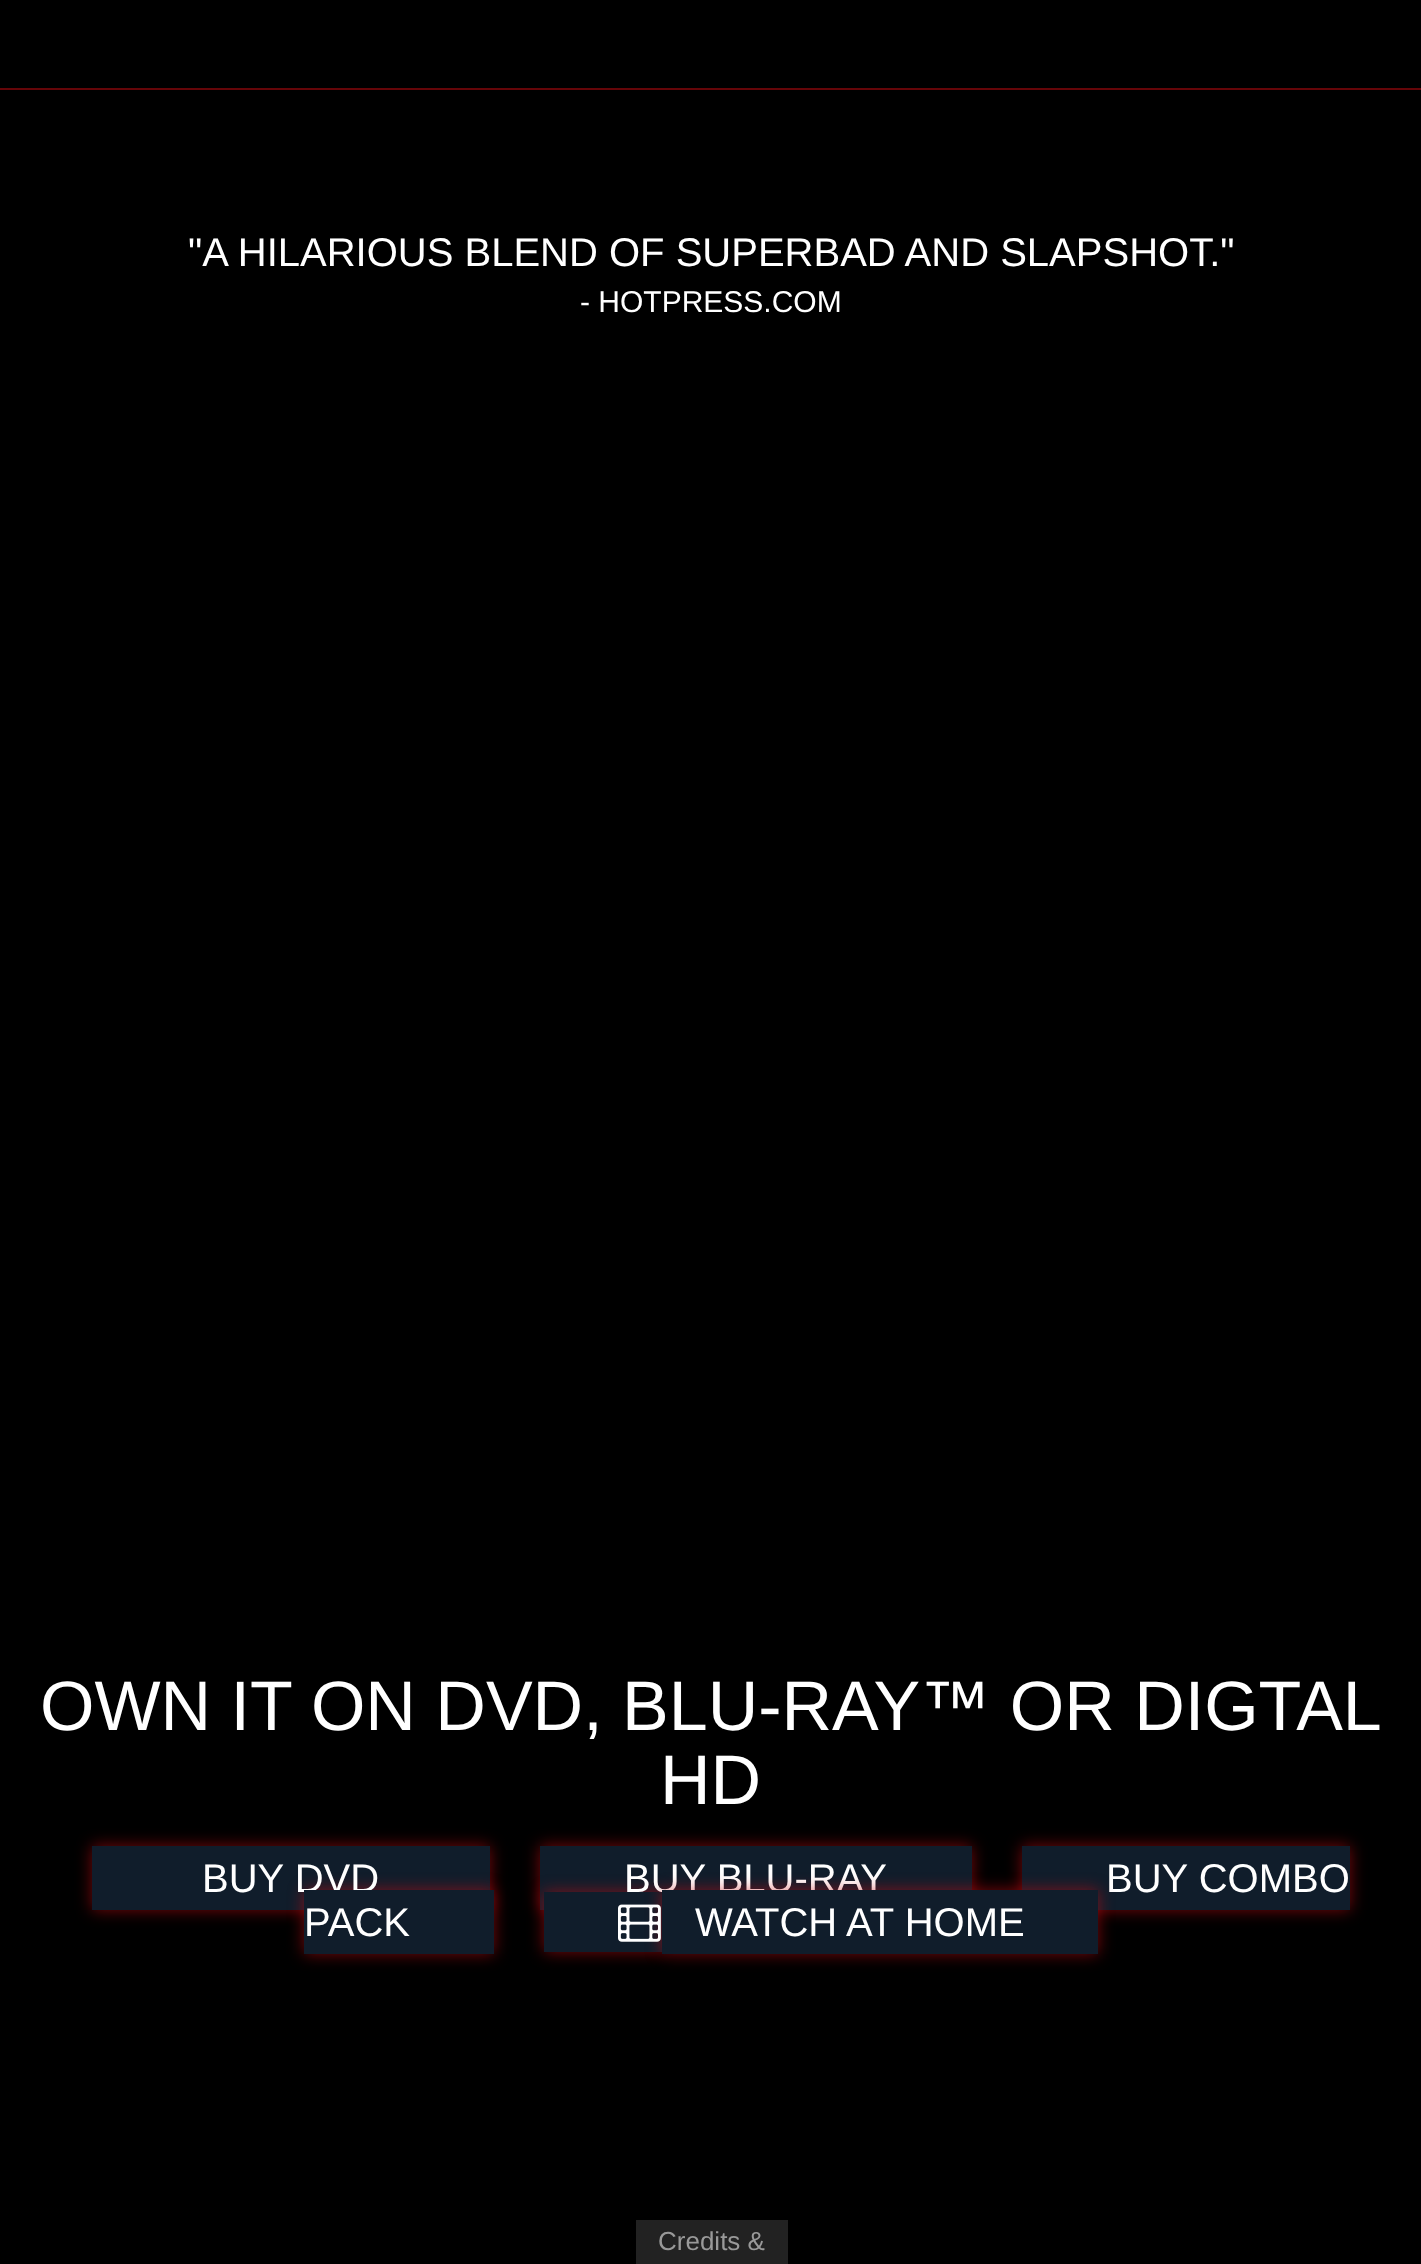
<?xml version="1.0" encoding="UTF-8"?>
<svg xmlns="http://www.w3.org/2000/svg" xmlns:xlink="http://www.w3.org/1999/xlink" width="1421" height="2264">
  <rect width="100%" height="100%" fill="#000000" />
  <rect y="88" width="1421" height="2" fill="#650508" />
  <rect x="92" y="1846" width="398" height="64" fill="#c90a10" fill-opacity="0.6" filter="blur(8px)" />
  <rect x="92" y="1846" width="398" height="64" fill="#101d2b" />
  <rect x="540" y="1846" width="432" height="64" fill="#c90a10" fill-opacity="0.6" filter="blur(8px)" />
  <rect x="540" y="1846" width="432" height="64" fill="#101d2b" />
  <rect x="1022" y="1846" width="328" height="64" fill="#c90a10" fill-opacity="0.6" filter="blur(8px)" />
  <rect x="1022" y="1846" width="328" height="64" fill="#101d2b" />
  <rect x="304" y="1890" width="190" height="64" fill="#c90a10" fill-opacity="0.6" filter="blur(8px)" />
  <rect x="544" y="1892" width="118" height="60" fill="#c90a10" fill-opacity="0.6" filter="blur(8px)" />
  <rect x="636" y="2220" width="152" height="44" fill="#222222" />
  <text x="188" y="266" style="font-family: Liberation Sans; font-size: 40px; fill: #ffffff">"A HILARIOUS BLEND OF SUPERBAD AND SLAPSHOT."</text>
  <text x="580" y="312" style="font-family: Liberation Sans; font-size: 30px; fill: #ffffff">- HOTPRESS.COM</text>
  <text x="40" y="1730" style="font-family: Liberation Sans; font-size: 70px; fill: #ffffff">OWN IT ON DVD, BLU-RAY™ OR DIGTAL</text>
  <text x="660" y="1804" style="font-family: Liberation Sans; font-size: 70px; fill: #ffffff">HD</text>
  <text x="202" y="1892" style="font-family: Liberation Sans; font-size: 40px; fill: #ffffff">BUY DVD</text>
  <text x="624" y="1892" style="font-family: Liberation Sans; font-size: 40px; fill: #ffffff">BUY BLU-RAY</text>
  <text x="1106" y="1892" style="font-family: Liberation Sans; font-size: 40px; fill: #ffffff">BUY COMBO</text>
  <rect x="304" y="1890" width="190" height="64" fill="#101d2b" />
  <text x="304" y="1936" style="font-family: Liberation Sans; font-size: 40px; fill: #ffffff">PACK</text>
  <rect x="544" y="1892" width="118" height="60" fill="#101d2b" />
  <rect x="662" y="1890" width="436" height="64" fill="#c90a10" fill-opacity="0.6" filter="blur(8px)" />
  <rect x="662" y="1890" width="436" height="64" fill="#101d2b" />
  <image x="618" y="1904" width="43" height="38" xlink:href="image1.png" />
  <text x="695" y="1936" style="font-family: Liberation Sans; font-size: 40px; fill: #ffffff">WATCH AT HOME</text>
  <text x="658" y="2250" style="font-family: Liberation Sans; font-size: 26px; fill: #999999">Credits &amp;</text>
</svg>
